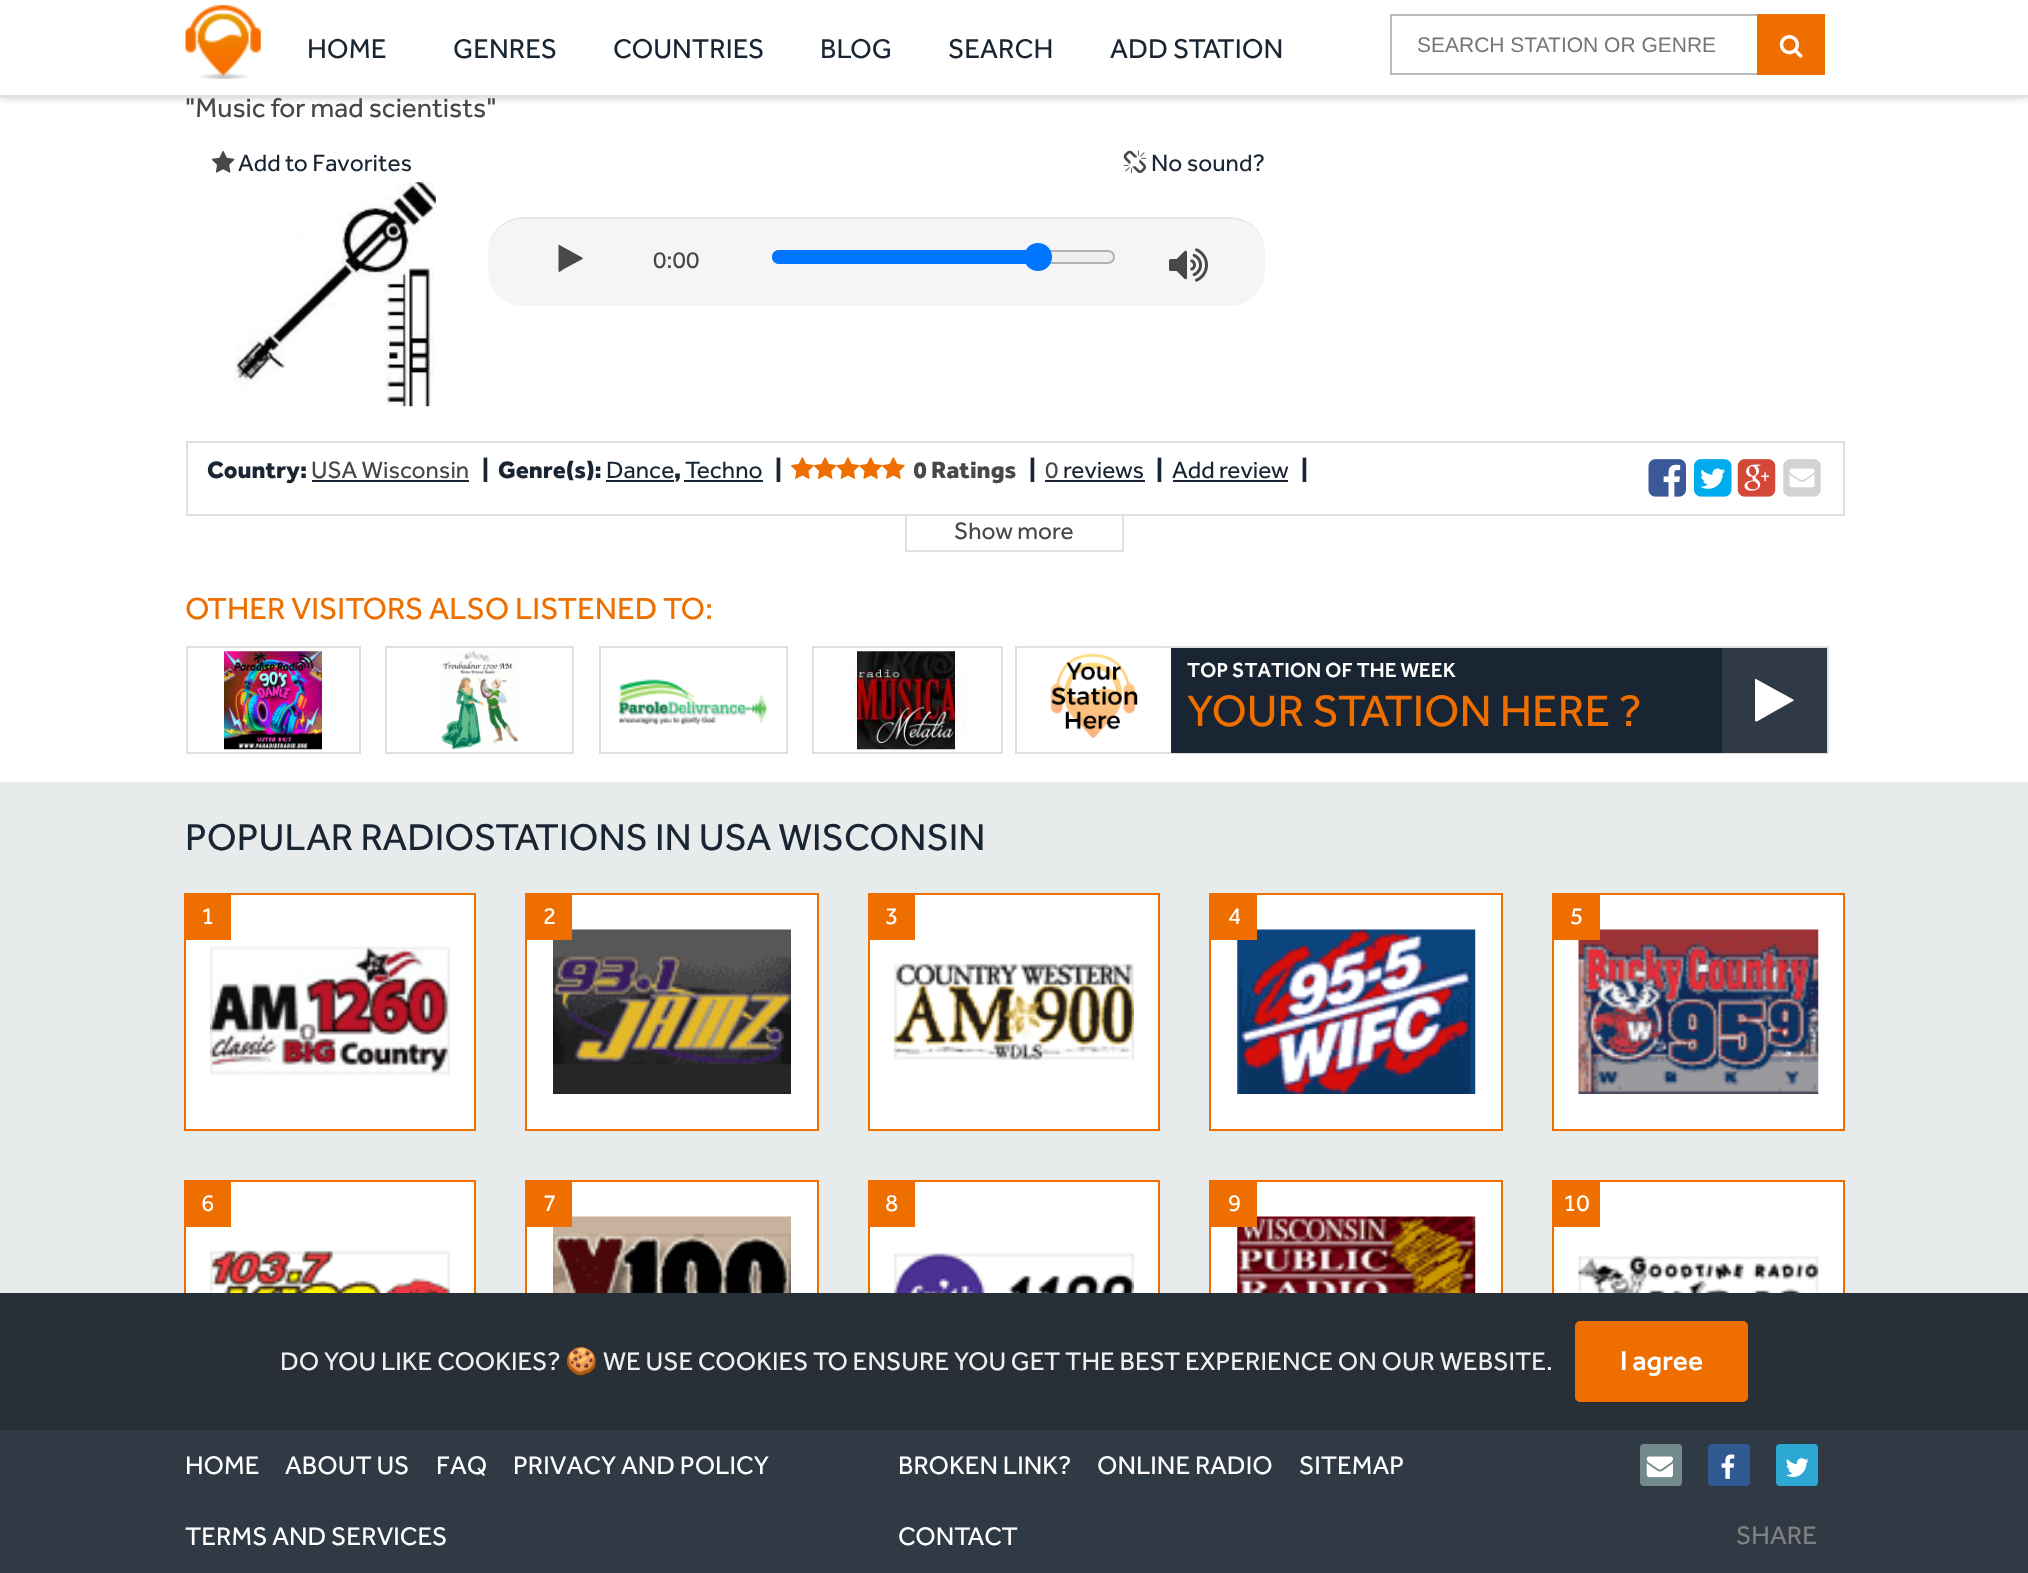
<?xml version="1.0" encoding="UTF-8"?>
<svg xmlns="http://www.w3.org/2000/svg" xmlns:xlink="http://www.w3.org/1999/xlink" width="2028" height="1573">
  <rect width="100%" height="100%" fill="#ffffff" />
  <rect width="2028" height="96" fill="#000000" fill-opacity="0.3" filter="blur(5px)" />
  <rect width="2028" height="95" fill="#ffffff" />
  <rect y="95" width="2028" height="2" fill="#e0e0e0" />
  <image x="185" y="5" width="76" height="74" xlink:href="image1.png" />
  <rect x="1391" y="15" width="372" height="59" fill="none" stroke="#bbbbbb" stroke-width="2" />
  <rect x="1757" y="14" width="68" height="61" fill="#ee6f00" />
  <image x="1779" y="35" width="24" height="23" xlink:href="image2.png" />
  <image x="211" y="151" width="24" height="22" xlink:href="image3.png" />
  <image x="1123" y="150" width="24" height="24" xlink:href="image4.png" />
  <image x="234" y="182" width="202" height="225" xlink:href="image5.png" />
  <rect x="488" y="217" width="777" height="89" rx="35" fill="#f5f5f5" />
  <path d="M 523 219 h 707 c 20 0 35 15 35 35 v -2 c 0 -19 -16 -35 -35 -35 h -707 c -19 0 -35 16 -35 35 v 2 c 0 -20 16 -35 35 -35 z" fill="#000000" fill-opacity="0.05" />
  <path d="M 582.5 259 l -19.5 10.5 c -0.5 0.5 -4 3.5 -4.5 2 v -26.5 v -0.5 l 20 11 l 4.5 2.5 z" fill="#484848" />
  <rect x="773" y="251" width="341" height="12" rx="6" fill="#efefef" stroke="#b2b2b2" stroke-width="2" />
  <path d="M 779 250 h 259 v 14 h -259 c -4 0 -7 -3 -7 -7 c 0 -4 3 -7 7 -7 z" fill="#0075ff" />
  <circle cx="1038" cy="257" r="14" fill="#0075ff" />
  <image x="1169" y="248" width="39" height="34" xlink:href="image6.png" />
  <rect x="1122" y="515" width="2" height="36" fill="#dde0e0" />
  <rect x="905" y="550" width="219" height="2" fill="#dde0e0" />
  <rect x="905" y="515" width="2" height="36" fill="#dde0e0" />
  <rect x="187" y="442" width="1657" height="73" fill="none" stroke="#dde0e0" stroke-width="2" />
  <rect x="312" y="480" width="157" height="2" fill="#192532" />
  <rect x="606" y="480" width="68" height="2" fill="#192532" />
  <rect x="684" y="480" width="79" height="2" fill="#192532" />
  <image x="791" y="457" width="23" height="22" xlink:href="image7.png" />
  <image x="813" y="457" width="24" height="22" xlink:href="image8.png" />
  <image x="836" y="457" width="24" height="22" xlink:href="image9.png" />
  <image x="859" y="457" width="23" height="22" xlink:href="image10.png" />
  <image x="882" y="457" width="23" height="22" xlink:href="image7.png" />
  <rect x="1045" y="480" width="100" height="2" fill="#192532" />
  <rect x="1173" y="480" width="115" height="2" fill="#192532" />
  <image x="1648" y="459" width="38" height="38" xlink:href="image11.png" />
  <image x="1694" y="459" width="38" height="38" xlink:href="image12.png" />
  <image x="1737" y="459" width="39" height="38" xlink:href="image13.png" />
  <image x="1783" y="459" width="38" height="38" xlink:href="image14.png" />
  <rect x="187" y="647" width="173" height="106" fill="none" stroke="#dde0e0" stroke-width="2" />
  <image x="224" y="651" width="98" height="99" xlink:href="image15.png" />
  <rect x="386" y="647" width="187" height="106" fill="none" stroke="#dde0e0" stroke-width="2" />
  <image x="441" y="651" width="77" height="99" xlink:href="image16.png" />
  <rect x="600" y="647" width="187" height="106" fill="none" stroke="#dde0e0" stroke-width="2" />
  <image x="619" y="679" width="148" height="46" xlink:href="image17.png" />
  <rect x="813" y="647" width="189" height="106" fill="none" stroke="#dde0e0" stroke-width="2" />
  <image x="849" y="651" width="118" height="99" xlink:href="image18.png" />
  <rect x="1016" y="647" width="812" height="106" fill="none" stroke="#dde0e0" stroke-width="2" />
  <image x="1025" y="647" width="135" height="92" xlink:href="image19.png" />
  <rect x="1171" y="648" width="551" height="105" fill="#192532" />
  <rect x="1722" y="648" width="105" height="105" fill="#2f3a45" />
  <path d="M 1793 701 l -30 17 c -1 0 -6 5 -8 3 v -42 h 1 l 31 17 l 7 4 z" fill="#ffffff" />
  <rect y="782" width="2028" height="511" fill="#e7ebeb" />
  <rect x="186" y="895" width="288" height="234" fill="#ffffff" />
  <image x="210" y="946" width="240" height="129" xlink:href="image20.png" />
  <rect x="185" y="894" width="290" height="236" fill="none" stroke="#ee6f00" stroke-width="2" />
  <rect x="186" y="895" width="45" height="45" fill="#ee6f00" />
  <rect x="527" y="895" width="290" height="234" fill="#ffffff" />
  <image x="553" y="929" width="238" height="165" xlink:href="image21.png" />
  <rect x="526" y="894" width="292" height="236" fill="none" stroke="#ee6f00" stroke-width="2" />
  <rect x="527" y="895" width="45" height="45" fill="#ee6f00" />
  <rect x="870" y="895" width="288" height="234" fill="#ffffff" />
  <image x="894" y="963" width="240" height="97" xlink:href="image22.png" />
  <rect x="869" y="894" width="290" height="236" fill="none" stroke="#ee6f00" stroke-width="2" />
  <rect x="870" y="895" width="45" height="45" fill="#ee6f00" />
  <rect x="1211" y="895" width="290" height="234" fill="#ffffff" />
  <image x="1237" y="929" width="239" height="165" xlink:href="image23.png" />
  <rect x="1210" y="894" width="292" height="236" fill="none" stroke="#ee6f00" stroke-width="2" />
  <rect x="1211" y="895" width="46" height="45" fill="#ee6f00" />
  <rect x="1554" y="895" width="289" height="234" fill="#ffffff" />
  <image x="1578" y="929" width="241" height="165" xlink:href="image24.png" />
  <rect x="1553" y="894" width="291" height="236" fill="none" stroke="#ee6f00" stroke-width="2" />
  <rect x="1554" y="895" width="46" height="45" fill="#ee6f00" />
  <rect x="186" y="1182" width="288" height="111" fill="#ffffff" />
  <image x="210" y="1250" width="240" height="43" xlink:href="image25.png" />
  <rect x="185" y="1181" width="290" height="236" fill="none" stroke="#ee6f00" stroke-width="2" />
  <rect x="186" y="1182" width="45" height="45" fill="#ee6f00" />
  <rect x="527" y="1182" width="290" height="111" fill="#ffffff" />
  <image x="553" y="1216" width="238" height="77" xlink:href="image26.png" />
  <rect x="526" y="1181" width="292" height="236" fill="none" stroke="#ee6f00" stroke-width="2" />
  <rect x="527" y="1182" width="45" height="45" fill="#ee6f00" />
  <rect x="870" y="1182" width="288" height="111" fill="#ffffff" />
  <image x="894" y="1253" width="240" height="40" xlink:href="image27.png" />
  <rect x="869" y="1181" width="290" height="236" fill="none" stroke="#ee6f00" stroke-width="2" />
  <rect x="870" y="1182" width="45" height="45" fill="#ee6f00" />
  <rect x="1211" y="1182" width="290" height="111" fill="#ffffff" />
  <image x="1237" y="1216" width="239" height="77" xlink:href="image28.png" />
  <rect x="1210" y="1181" width="292" height="236" fill="none" stroke="#ee6f00" stroke-width="2" />
  <rect x="1211" y="1182" width="46" height="45" fill="#ee6f00" />
  <rect x="1554" y="1182" width="289" height="111" fill="#ffffff" />
  <image x="1578" y="1255" width="241" height="38" xlink:href="image29.png" />
  <rect x="1553" y="1181" width="291" height="236" fill="none" stroke="#ee6f00" stroke-width="2" />
  <rect x="1554" y="1182" width="46" height="45" fill="#ee6f00" />
  <rect y="1430" width="2028" height="143" fill="#2f3a45" />
  <rect y="1293" width="2028" height="137" fill="#282f36" />
  <rect x="1576" y="1322" width="171" height="79" rx="4" fill="#ee6f00" stroke="#ee6f00" stroke-width="2" />
  <rect x="1640" y="1444" width="42" height="42" rx="4" fill="#738a8d" />
  <image x="1646" y="1456" width="27" height="22" xlink:href="image30.png" />
  <rect x="1708" y="1444" width="42" height="42" rx="4" fill="#305891" />
  <image x="1721" y="1454" width="14" height="25" xlink:href="image31.png" />
  <rect x="1776" y="1444" width="42" height="42" rx="4" fill="#2ca8d2" />
  <image x="1785" y="1458" width="24" height="19" xlink:href="image32.png" />
  <text x="307" y="58" style="font-family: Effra; font-size: 28px; fill: #192532">HOME</text>
  <text x="453" y="58" style="font-family: Effra; font-size: 28px; fill: #192532">GENRES</text>
  <text x="613" y="58" style="font-family: Effra; font-size: 28px; fill: #192532">COUNTRIES</text>
  <text x="820" y="58" style="font-family: Effra; font-size: 28px; fill: #192532">BLOG</text>
  <text x="948" y="58" style="font-family: Effra; font-size: 28px; fill: #192532">SEARCH</text>
  <text x="1110" y="58" style="font-family: Effra; font-size: 28px; fill: #192532">ADD STATION</text>
  <text x="1417" y="52" style="font-family: Liberation Sans; font-size: 21px; fill: #757575">SEARCH STATION OR GENRE</text>
  <text x="185" y="117" style="font-family: Effra; font-size: 28px; fill: #484848">"Music for mad scientists"</text>
  <text x="238" y="171" style="font-family: Effra; font-size: 24.5px; fill: #192532">Add to Favorites</text>
  <text x="1151" y="171" style="font-family: Effra; font-size: 24.5px; fill: #192532">No sound?</text>
  <text x="653" y="268" style="font-family: Effra; font-size: 24.5px; fill: #484848">0:00</text>
  <text x="207" y="478" style="font-family: Effra; font-size: 24.5px; font-weight: 900; fill: #192532">Country:</text>
  <text x="311" y="478" style="font-family: Effra; font-size: 24.5px; fill: #484848">USA Wisconsin</text>
  <text x="482" y="478" style="font-family: Effra; font-size: 24.5px; font-weight: 900; fill: #192532">|</text>
  <text x="498" y="478" style="font-family: Effra; font-size: 24.5px; font-weight: 900; fill: #192532">Genre(s):</text>
  <text x="606" y="478" style="font-family: Effra; font-size: 24.5px; fill: #192532">Dance</text>
  <text x="674" y="478" style="font-family: Effra; font-size: 24.5px; font-weight: 900; fill: #192532">,</text>
  <text x="685" y="478" style="font-family: Effra; font-size: 24.5px; fill: #192532">Techno</text>
  <text x="775" y="478" style="font-family: Effra; font-size: 24.5px; font-weight: 900; fill: #192532">|</text>
  <text x="913" y="478" style="font-family: Effra; font-size: 24.5px; font-weight: 900; fill: #484848">0 Ratings</text>
  <text x="1029" y="478" style="font-family: Effra; font-size: 24.5px; font-weight: 900; fill: #192532">|</text>
  <text x="1045" y="478" style="font-family: Effra; font-size: 24.5px; fill: #484848">0</text>
  <text x="1063" y="478" style="font-family: Effra; font-size: 24.5px; fill: #192532">reviews</text>
  <text x="1156" y="478" style="font-family: Effra; font-size: 24.5px; font-weight: 900; fill: #192532">|</text>
  <text x="1172" y="478" style="font-family: Effra; font-size: 24.5px; fill: #192532">Add review</text>
  <text x="1301" y="478" style="font-family: Effra; font-size: 24.5px; font-weight: 900; fill: #192532">|</text>
  <text x="954" y="539" style="font-family: Effra; font-size: 24.5px; fill: #484848">Show more</text>
  <text x="185" y="619" style="font-family: Effra; font-size: 31.5px; fill: #ee6f00">OTHER VISITORS ALSO LISTENED TO:</text>
  <text x="1187" y="677" style="font-family: Effra; font-size: 21px; font-weight: 500; fill: #ffffff">TOP STATION OF THE WEEK</text>
  <text x="1187" y="726" style="font-family: Effra; font-size: 45.5px; fill: #ee6f00">YOUR STATION HERE ?</text>
  <text x="185" y="850" style="font-family: Effra; font-size: 38.5px; fill: #192532">POPULAR RADIOSTATIONS IN USA WISCONSIN</text>
  <text x="201" y="924" style="font-family: Effra; font-size: 24.5px; fill: #ffffff">1</text>
  <text x="543" y="924" style="font-family: Effra; font-size: 24.5px; fill: #ffffff">2</text>
  <text x="885" y="924" style="font-family: Effra; font-size: 24.5px; fill: #ffffff">3</text>
  <text x="1228" y="924" style="font-family: Effra; font-size: 24.5px; fill: #ffffff">4</text>
  <text x="1570" y="924" style="font-family: Effra; font-size: 24.5px; fill: #ffffff">5</text>
  <text x="201" y="1211" style="font-family: Effra; font-size: 24.5px; fill: #ffffff">6</text>
  <text x="543" y="1211" style="font-family: Effra; font-size: 24.5px; fill: #ffffff">7</text>
  <text x="885" y="1211" style="font-family: Effra; font-size: 24.5px; fill: #ffffff">8</text>
  <text x="1228" y="1211" style="font-family: Effra; font-size: 24.5px; fill: #ffffff">9</text>
  <text x="1563" y="1211" style="font-family: Effra; font-size: 24.5px; fill: #ffffff">10</text>
  <text x="280" y="1370" style="font-family: Effra; font-size: 26.25px; fill: #ecf0f1">DO YOU LIKE COOKIES?</text>
  <text x="565" y="1370" style="font-family: Noto Color Emoji; font-size: 26.25px; fill: #ecf0f1">🍪</text>
  <text x="603" y="1370" style="font-family: Effra; font-size: 26.25px; fill: #ecf0f1">WE USE COOKIES TO ENSURE YOU GET THE BEST EXPERIENCE ON OUR WEBSITE.</text>
  <text x="1620" y="1370" style="font-family: Effra; font-size: 28px; font-weight: 500; fill: #ffffff">I agree</text>
  <text x="185" y="1474" style="font-family: Effra; font-size: 26.25px; fill: #ffffff">HOME</text>
  <text x="285" y="1474" style="font-family: Effra; font-size: 26.25px; fill: #ffffff">ABOUT US</text>
  <text x="436" y="1474" style="font-family: Effra; font-size: 26.25px; fill: #ffffff">FAQ</text>
  <text x="513" y="1474" style="font-family: Effra; font-size: 26.25px; fill: #ffffff">PRIVACY AND POLICY</text>
  <text x="185" y="1545" style="font-family: Effra; font-size: 26.25px; fill: #ffffff">TERMS AND SERVICES</text>
  <text x="898" y="1474" style="font-family: Effra; font-size: 26.25px; fill: #ffffff">BROKEN LINK?</text>
  <text x="1097" y="1474" style="font-family: Effra; font-size: 26.25px; fill: #ffffff">ONLINE RADIO</text>
  <text x="1299" y="1474" style="font-family: Effra; font-size: 26.25px; fill: #ffffff">SITEMAP</text>
  <text x="898" y="1545" style="font-family: Effra; font-size: 26.25px; fill: #ffffff">CONTACT</text>
  <text x="1736" y="1544" style="font-family: Effra; font-size: 26.25px; fill: #808080">SHARE</text>
</svg>
